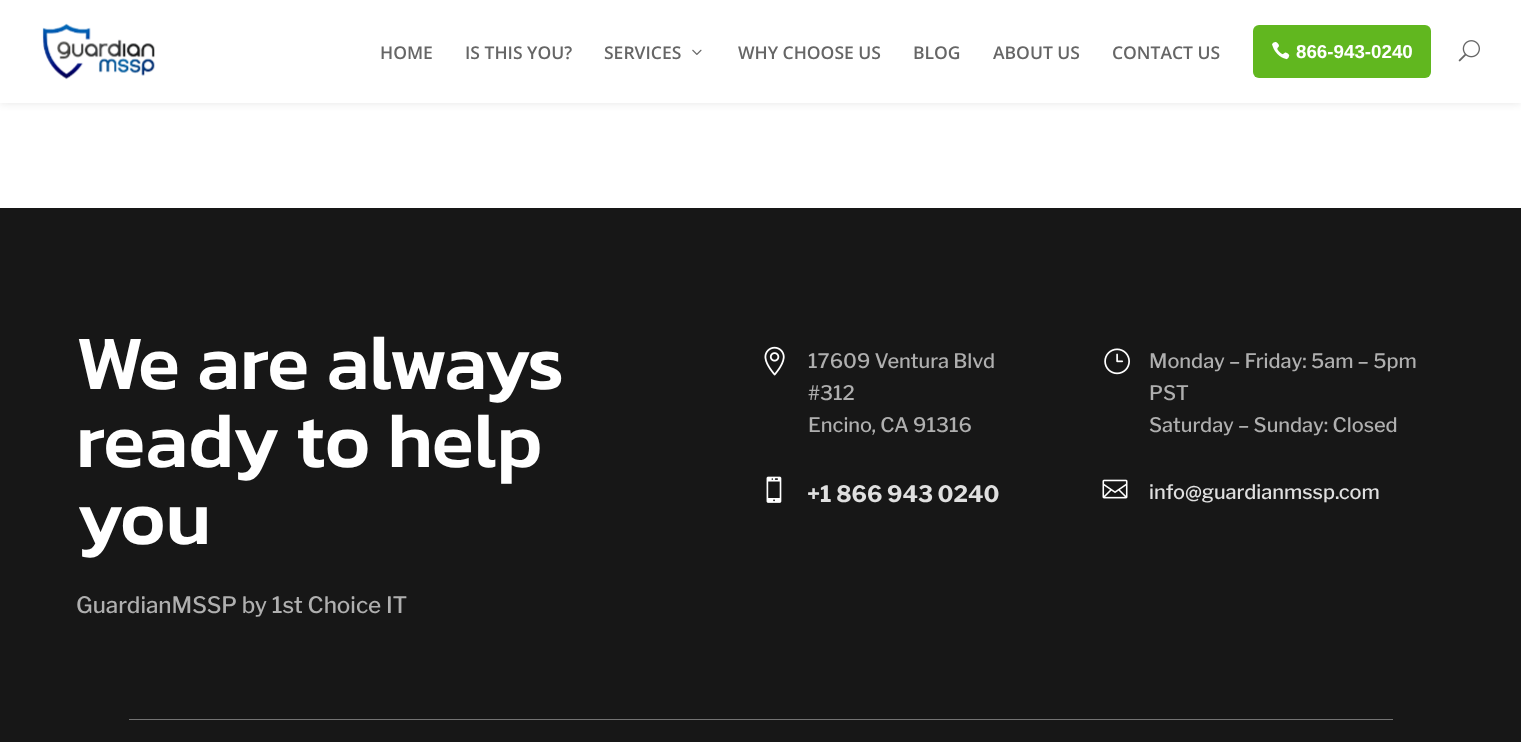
<?xml version="1.0" encoding="UTF-8"?>
<svg xmlns="http://www.w3.org/2000/svg" xmlns:xlink="http://www.w3.org/1999/xlink" width="1521" height="742">
  <rect width="100%" height="100%" fill="#ffffff" />
  <rect width="1521" height="103" fill="#000000" fill-opacity="0.1" filter="blur(4.5px)" />
  <rect width="1521" height="103" fill="#ffffff" />
  <image x="42" y="23" width="113" height="57" xlink:href="image1.png" />
  <image x="692" y="49" width="10" height="6" xlink:href="image2.png" />
  <rect x="1253" y="25" width="178" height="53" rx="6" fill="#61b71f" />
  <image x="1272" y="42" width="18" height="18" xlink:href="image3.png" />
  <image x="1458" y="40" width="22" height="22" xlink:href="image4.png" />
  <rect y="208" width="1521" height="534" fill="#171717" />
  <image x="764" y="346" width="21" height="30" xlink:href="image5.png" />
  <image x="766" y="476" width="16" height="27" xlink:href="image6.png" />
  <image x="1104" y="348" width="26" height="27" xlink:href="image7.png" />
  <image x="1102" y="479" width="26" height="20" xlink:href="image8.png" />
  <rect x="129" y="719" width="1264" height="1" fill="#737373" />
  <text x="380" y="59" style="font-family: Open Sans; font-size: 17.5px; font-weight: 600; fill: #666666">HOME</text>
  <text x="465" y="59" style="font-family: Open Sans; font-size: 17.5px; font-weight: 600; fill: #666666">IS THIS YOU?</text>
  <text x="604" y="59" style="font-family: Open Sans; font-size: 17.5px; font-weight: 600; fill: #666666">SERVICES</text>
  <text x="738" y="59" style="font-family: Open Sans; font-size: 17.5px; font-weight: 600; fill: #666666">WHY CHOOSE US</text>
  <text x="913" y="59" style="font-family: Open Sans; font-size: 17.5px; font-weight: 600; fill: #666666">BLOG</text>
  <text x="993" y="59" style="font-family: Open Sans; font-size: 17.5px; font-weight: 600; fill: #666666">ABOUT US</text>
  <text x="1112" y="59" style="font-family: Open Sans; font-size: 17.5px; font-weight: 600; fill: #666666">CONTACT US</text>
  <text x="1296" y="58" style="font-family: Liberation Sans; font-size: 18.75px; font-weight: bold; fill: #ffffff">866-943-0240</text>
  <text x="76" y="389" style="font-family: Kanit; font-size: 77.5px; font-weight: 500; fill: #ffffff">We are always</text>
  <text x="76" y="467" style="font-family: Kanit; font-size: 77.5px; font-weight: 500; fill: #ffffff">ready to help</text>
  <text x="76" y="544" style="font-family: Kanit; font-size: 77.5px; font-weight: 500; fill: #ffffff">you</text>
  <text x="76" y="613" style="font-family: Libre Franklin; font-size: 22.5px; font-weight: 500; fill: #afafaf">GuardianMSSP by 1st Choice IT</text>
  <text x="808" y="368" style="font-family: Libre Franklin; font-size: 20px; font-weight: 500; fill: #afafaf">17609 Ventura Blvd</text>
  <text x="808" y="400" style="font-family: Libre Franklin; font-size: 20px; font-weight: 500; fill: #afafaf">#312</text>
  <text x="808" y="432" style="font-family: Libre Franklin; font-size: 20px; font-weight: 500; fill: #afafaf">Encino, CA 91316</text>
  <text x="807" y="502" style="font-family: Libre Franklin; font-size: 22.5px; font-weight: bold; fill: #e0e0e0">+1 866 943 0240</text>
  <text x="1149" y="368" style="font-family: Libre Franklin; font-size: 20px; font-weight: 500; fill: #afafaf">Monday – Friday: 5am – 5pm</text>
  <text x="1149" y="400" style="font-family: Libre Franklin; font-size: 20px; font-weight: 500; fill: #afafaf">PST</text>
  <text x="1149" y="432" style="font-family: Libre Franklin; font-size: 20px; font-weight: 500; fill: #afafaf">Saturday – Sunday: Closed</text>
  <text x="1149" y="499" style="font-family: Libre Franklin; font-size: 20px; font-weight: 500; fill: #e0e0e0">info@guardianmssp.com</text>
</svg>
